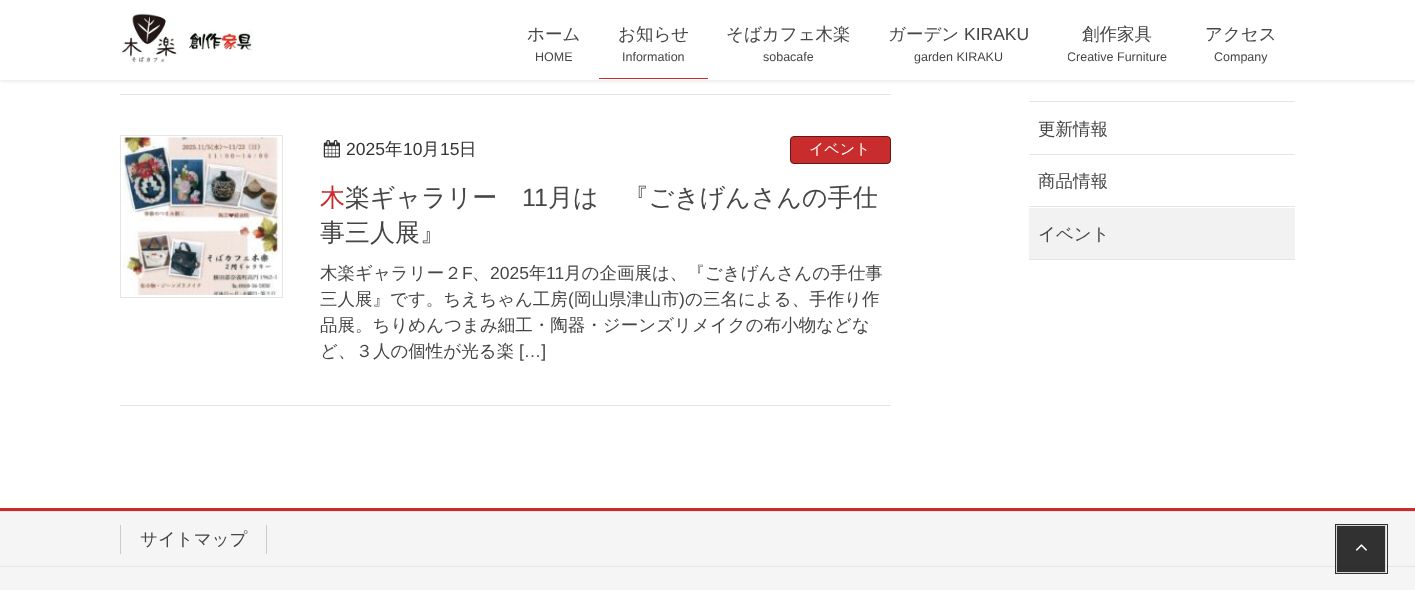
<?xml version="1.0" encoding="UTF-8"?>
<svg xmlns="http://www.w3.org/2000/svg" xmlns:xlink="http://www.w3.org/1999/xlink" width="1415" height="590">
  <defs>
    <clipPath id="clip1"><rect x="1068" y="49" width="100" height="17" /></clipPath>
  </defs>
  <rect width="100%" height="100%" fill="#ffffff" />
  <rect y="1" width="1415" height="80" fill="#000000" fill-opacity="0.1" filter="blur(2px)" />
  <rect width="1415" height="80" fill="#ffffff" />
  <image x="121" y="13" width="132" height="50" xlink:href="image1.png" />
  <rect x="599" y="78" width="109" height="1" fill="#c92c2c" />
  <rect x="120" y="94" width="771" height="1" fill="#e5e5e5" />
  <rect x="120" y="405" width="771" height="1" fill="#e5e5e5" />
  <rect x="120.5" y="135.5" width="162" height="162" fill="none" stroke="#e5e5e5" />
  <image x="122" y="137" width="158" height="158" xlink:href="image2.png" />
  <image x="323" y="140" width="17" height="18" xlink:href="image3.png" />
  <rect x="790.5" y="136.5" width="100" height="27" rx="3.5" fill="#c92c2c" stroke="#631717" />
  <rect x="1029" y="101" width="266" height="1" fill="#e5e5e5" />
  <rect x="1029" y="154" width="266" height="1" fill="#e5e5e5" />
  <rect x="1029" y="206" width="266" height="1" fill="#e5e5e5" />
  <rect x="1029" y="208" width="266" height="51" fill="#f2f2f2" />
  <rect x="1029" y="259" width="266" height="1" fill="#e5e5e5" />
  <rect y="512" width="1415" height="78" fill="#f5f5f5" />
  <rect x="1336" y="525" width="50" height="48" fill="#313131" />
  <rect y="508" width="1415" height="3" fill="#c92c2c" />
  <rect y="511" width="1415" height="1" fill="#e5e5e5" />
  <rect y="566" width="1415" height="1" fill="#e5e5e5" />
  <rect x="1336" y="566" width="50" height="1" fill="#2e2e2e" />
  <rect x="266" y="525" width="1" height="29" fill="#cccccc" />
  <rect x="120" y="525" width="1" height="29" fill="#cccccc" />
  <rect x="1336.5" y="525.5" width="49" height="47" fill="none" stroke="#ffffff" stroke-opacity="0.8" />
  <image x="1355" y="544" width="12" height="7" xlink:href="image4.png" />
  <rect x="1335.5" y="524.5" width="52" height="49" fill="none" stroke="#000000" stroke-opacity="0.8" />
  <text x="527" y="40" style="font-family: WenQuanYi Zen Hei; font-size: 17.5px; font-weight: 500; fill: #464646">ホーム</text>
  <text x="535" y="61" style="font-family: Liberation Sans; font-size: 12.5px; fill: #464646">HOME</text>
  <text x="618" y="40" style="font-family: WenQuanYi Zen Hei; font-size: 17.5px; font-weight: 500; fill: #464646">お知らせ</text>
  <text x="622" y="61" style="font-family: Liberation Sans; font-size: 12.5px; fill: #464646">Information</text>
  <text x="726" y="40" style="font-family: WenQuanYi Zen Hei; font-size: 17.5px; font-weight: 500; fill: #464646">そばカフェ木楽</text>
  <text x="763" y="61" style="font-family: Liberation Sans; font-size: 12.5px; fill: #464646">sobacafe</text>
  <text x="888" y="40" style="font-family: WenQuanYi Zen Hei; font-size: 17.5px; font-weight: 500; fill: #464646">ガーデン</text>
  <text x="964" y="40" style="font-family: Liberation Sans; font-size: 17.5px; fill: #464646">KIRAKU</text>
  <text x="914" y="61" style="font-family: Liberation Sans; font-size: 12.5px; fill: #464646">garden KIRAKU</text>
  <text x="1082" y="40" style="font-family: WenQuanYi Zen Hei; font-size: 17.5px; font-weight: 500; fill: #464646">創作家具</text>
  <g clip-path="url(#clip1)">
    <text x="1067" y="61" style="font-family: Liberation Sans; font-size: 12.5px; fill: #464646">Creative Furniture</text>
  </g>
  <text x="1205" y="40" style="font-family: WenQuanYi Zen Hei; font-size: 17.5px; font-weight: 500; fill: #464646">アクセス</text>
  <text x="1214" y="61" style="font-family: Liberation Sans; font-size: 12.5px; fill: #464646">Company</text>
  <text x="346" y="155" style="font-family: Liberation Sans; font-size: 17.5px; fill: #333333">2025</text>
  <text x="385" y="155" style="font-family: WenQuanYi Zen Hei; font-size: 17.5px; font-weight: 500; fill: #333333">年</text>
  <text x="403" y="155" style="font-family: Liberation Sans; font-size: 17.5px; fill: #333333">10</text>
  <text x="422" y="155" style="font-family: WenQuanYi Zen Hei; font-size: 17.5px; font-weight: 500; fill: #333333">月</text>
  <text x="440" y="155" style="font-family: Liberation Sans; font-size: 17.5px; fill: #333333">15</text>
  <text x="459" y="155" style="font-family: WenQuanYi Zen Hei; font-size: 17.5px; font-weight: 500; fill: #333333">日</text>
  <text x="809" y="154" style="font-family: WenQuanYi Zen Hei; font-size: 15px; font-weight: 500; fill: #ffffff">イベント</text>
  <text x="320" y="206" style="font-family: Noto Sans; font-size: 25px; fill: #c92c2c">木</text>
  <text x="345" y="206" style="font-family: WenQuanYi Zen Hei; font-size: 25px; font-weight: 500; fill: #464646">楽ギャラリー</text>
  <text x="522" y="206" style="font-family: Liberation Sans; font-size: 25px; fill: #464646">11</text>
  <text x="548" y="206" style="font-family: WenQuanYi Zen Hei; font-size: 25px; font-weight: 500; fill: #464646">月は　『ごきげんさんの手仕</text>
  <text x="320" y="241" style="font-family: WenQuanYi Zen Hei; font-size: 25px; font-weight: 500; fill: #464646">事三人展』</text>
  <text x="320" y="279" style="font-family: WenQuanYi Zen Hei; font-size: 17.5px; font-weight: 500; fill: #464646">木楽ギャラリー２</text>
  <text x="462" y="279" style="font-family: Liberation Sans; font-size: 17.5px; fill: #464646">F</text>
  <text x="490" y="279" style="font-family: Liberation Sans; font-size: 17.5px; fill: #464646">2025</text>
  <text x="529" y="279" style="font-family: WenQuanYi Zen Hei; font-size: 17.5px; font-weight: 500; fill: #464646">年</text>
  <text x="546" y="279" style="font-family: Liberation Sans; font-size: 17.5px; fill: #464646">11</text>
  <text x="564" y="279" style="font-family: WenQuanYi Zen Hei; font-size: 17.5px; font-weight: 500; fill: #464646">月の企画展は、『ごきげんさんの手仕事</text>
  <text x="472" y="279" style="font-family: WenQuanYi Zen Hei; font-size: 17.5px; font-weight: 500; fill: #464646">、</text>
  <text x="320" y="305" style="font-family: WenQuanYi Zen Hei; font-size: 17.5px; font-weight: 500; fill: #464646">三人展』です。ちえちゃん工房</text>
  <text x="568" y="305" style="font-family: Liberation Sans; font-size: 17.5px; fill: #464646">(</text>
  <text x="574" y="305" style="font-family: WenQuanYi Zen Hei; font-size: 17.5px; font-weight: 500; fill: #464646">岡山県津山市</text>
  <text x="679" y="305" style="font-family: Liberation Sans; font-size: 17.5px; fill: #464646">)</text>
  <text x="685" y="305" style="font-family: WenQuanYi Zen Hei; font-size: 17.5px; font-weight: 500; fill: #464646">の三名による、手作り作</text>
  <text x="320" y="331" style="font-family: WenQuanYi Zen Hei; font-size: 17.5px; font-weight: 500; fill: #464646">品展。ちりめんつまみ細工・陶器・ジーンズリメイクの布小物などな</text>
  <text x="320" y="357" style="font-family: WenQuanYi Zen Hei; font-size: 17.5px; font-weight: 500; fill: #464646">ど、３人の個性が光る楽</text>
  <text x="519" y="357" style="font-family: Liberation Sans; font-size: 17.5px; fill: #464646">[…]</text>
  <text x="1038" y="135" style="font-family: WenQuanYi Zen Hei; font-size: 17.5px; font-weight: 500; fill: #464646">更新情報</text>
  <text x="1038" y="187" style="font-family: WenQuanYi Zen Hei; font-size: 17.5px; font-weight: 500; fill: #464646">商品情報</text>
  <text x="1038" y="240" style="font-family: WenQuanYi Zen Hei; font-size: 17.5px; font-weight: 500; fill: #464646">イベント</text>
  <text x="140" y="545" style="font-family: WenQuanYi Zen Hei; font-size: 17.5px; font-weight: 500; fill: #464646">サイトマップ</text>
</svg>
